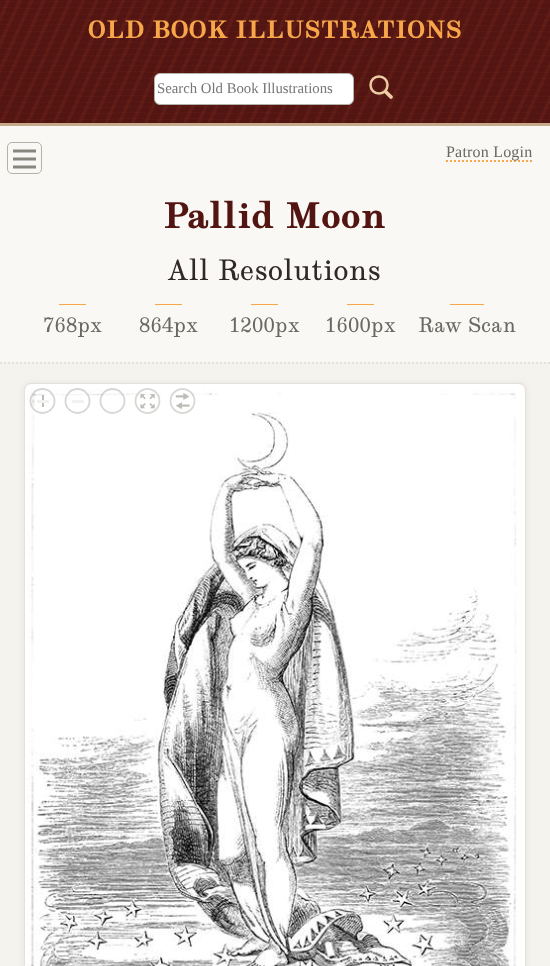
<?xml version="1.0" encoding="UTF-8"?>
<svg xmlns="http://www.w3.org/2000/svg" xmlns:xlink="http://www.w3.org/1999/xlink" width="550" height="966">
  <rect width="100%" height="100%" fill="#f9f8f4" />
  <rect width="550" height="123" fill="#521512" />
  <image x="0" y="1" width="550" height="120" xlink:href="image1.png" />
  <rect y="123" width="550" height="3" fill="#c5a98a" />
  <image x="0" y="0" width="550" height="123" xlink:href="image2.png" />
  <rect x="154.5" y="73.5" width="199" height="31" rx="5.5" fill="#ffffff" stroke="#b4b1aa" />
  <circle cx="379" cy="85" r="8.5" fill="none" stroke="#eccda3" stroke-width="2.5" />
  <path d="M 386 92 l 5 5" fill="none" stroke="#eccda3" stroke-width="3.8" stroke-linecap="round" />
  <rect x="7.5" y="142.5" width="34" height="31" rx="4.5" fill="none" stroke="#b4b1aa" />
  <image x="13" y="149" width="23" height="20" xlink:href="image3.png" />
  <path d="M 446 161 h 86" fill="none" stroke="#f7a74a" stroke-width="2" stroke-dasharray="2 2" />
  <rect x="59" y="304" width="27" height="1" fill="#f7a74a" />
  <rect x="155" y="304" width="27" height="1" fill="#f7a74a" />
  <rect x="251" y="304" width="27" height="1" fill="#f7a74a" />
  <rect x="347" y="304" width="27" height="1" fill="#f7a74a" />
  <rect x="450" y="304" width="34" height="1" fill="#f7a74a" />
  <rect y="362" width="550" height="604" fill="#f5f3ed" />
  <path d="M 0 363 h 550" fill="none" stroke="#e3e1d9" stroke-width="2" stroke-dasharray="2 2" />
  <rect x="24" y="384" width="502" height="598" rx="7" fill="#e2e0d9" filter="blur(3px)" />
  <rect x="25" y="384" width="500" height="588" rx="6" fill="#ffffff" />
  <rect x="24.5" y="383.5" width="501" height="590" rx="6.5" fill="none" stroke="#e3e1d9" />
  <image x="27" y="389" width="490" height="577" xlink:href="image8.png" />
  <circle cx="42.5" cy="401" r="12" fill="#ffffff" fill-opacity="0.29" stroke="#8c8a82" stroke-opacity="0.29" stroke-width="1.8" />
  <circle cx="42.5" cy="401" r="12" fill="#ffffff" fill-opacity="0.12" stroke="#a6a39a" stroke-opacity="0.12" stroke-width="1.8" />
  <rect x="42" y="395" width="2" height="12" fill="#bdbcb8" />
  <rect x="37" y="400" width="12" height="3" fill="#f1f1f0" />
  <circle cx="77.5" cy="401" r="12" fill="#ffffff" fill-opacity="0.29" stroke="#8c8a82" stroke-opacity="0.29" stroke-width="1.8" />
  <circle cx="77.5" cy="401" r="12" fill="#ffffff" fill-opacity="0.12" stroke="#a6a39a" stroke-opacity="0.12" stroke-width="1.8" />
  <rect x="72" y="400" width="12" height="3" fill="#f1f1f0" />
  <circle cx="112.5" cy="401" r="12" fill="#ffffff" fill-opacity="0.29" stroke="#8c8a82" stroke-opacity="0.29" stroke-width="1.8" />
  <circle cx="112.5" cy="401" r="12" fill="#ffffff" fill-opacity="0.12" stroke="#a6a39a" stroke-opacity="0.12" stroke-width="1.8" />
  <image x="134" y="388" width="27" height="26" xlink:href="image4.png" />
  <image x="135" y="388" width="25" height="26" xlink:href="image5.png" />
  <image x="169" y="388" width="27" height="26" xlink:href="image6.png" />
  <image x="170" y="388" width="25" height="26" xlink:href="image7.png" />
  <text x="88" y="38" style="font-family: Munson; font-size: 24px; font-weight: bold; letter-spacing: 0.2px; fill: #f7a74a">OLD BOOK ILLUSTRATIONS</text>
  <text x="157" y="93" style="font-family: Liberation Serif; font-size: 14.75px; fill: #757575">Search Old Book Illustrations</text>
  <text x="446" y="157" style="font-family: Liberation Serif; font-size: 16px; letter-spacing: 0.2px; fill: #6b6864">Patron Login</text>
  <text x="163" y="228" style="font-family: Munson; font-size: 35px; font-weight: bold; letter-spacing: 0.2px; fill: #521512">Pallid Moon</text>
  <text x="168" y="280" style="font-family: Munson; font-size: 28px; letter-spacing: 0.2px; fill: #312928">All Resolutions</text>
  <text x="43" y="332" style="font-family: Munson; font-size: 20px; letter-spacing: 0.2px; fill: #6b6864">768px</text>
  <text x="139" y="332" style="font-family: Munson; font-size: 20px; letter-spacing: 0.2px; fill: #6b6864">864px</text>
  <text x="229" y="332" style="font-family: Munson; font-size: 20px; letter-spacing: 0.2px; fill: #6b6864">1200px</text>
  <text x="325" y="332" style="font-family: Munson; font-size: 20px; letter-spacing: 0.2px; fill: #6b6864">1600px</text>
  <text x="418" y="332" style="font-family: Munson; font-size: 20px; letter-spacing: 0.2px; fill: #6b6864">Raw Scan</text>
</svg>
